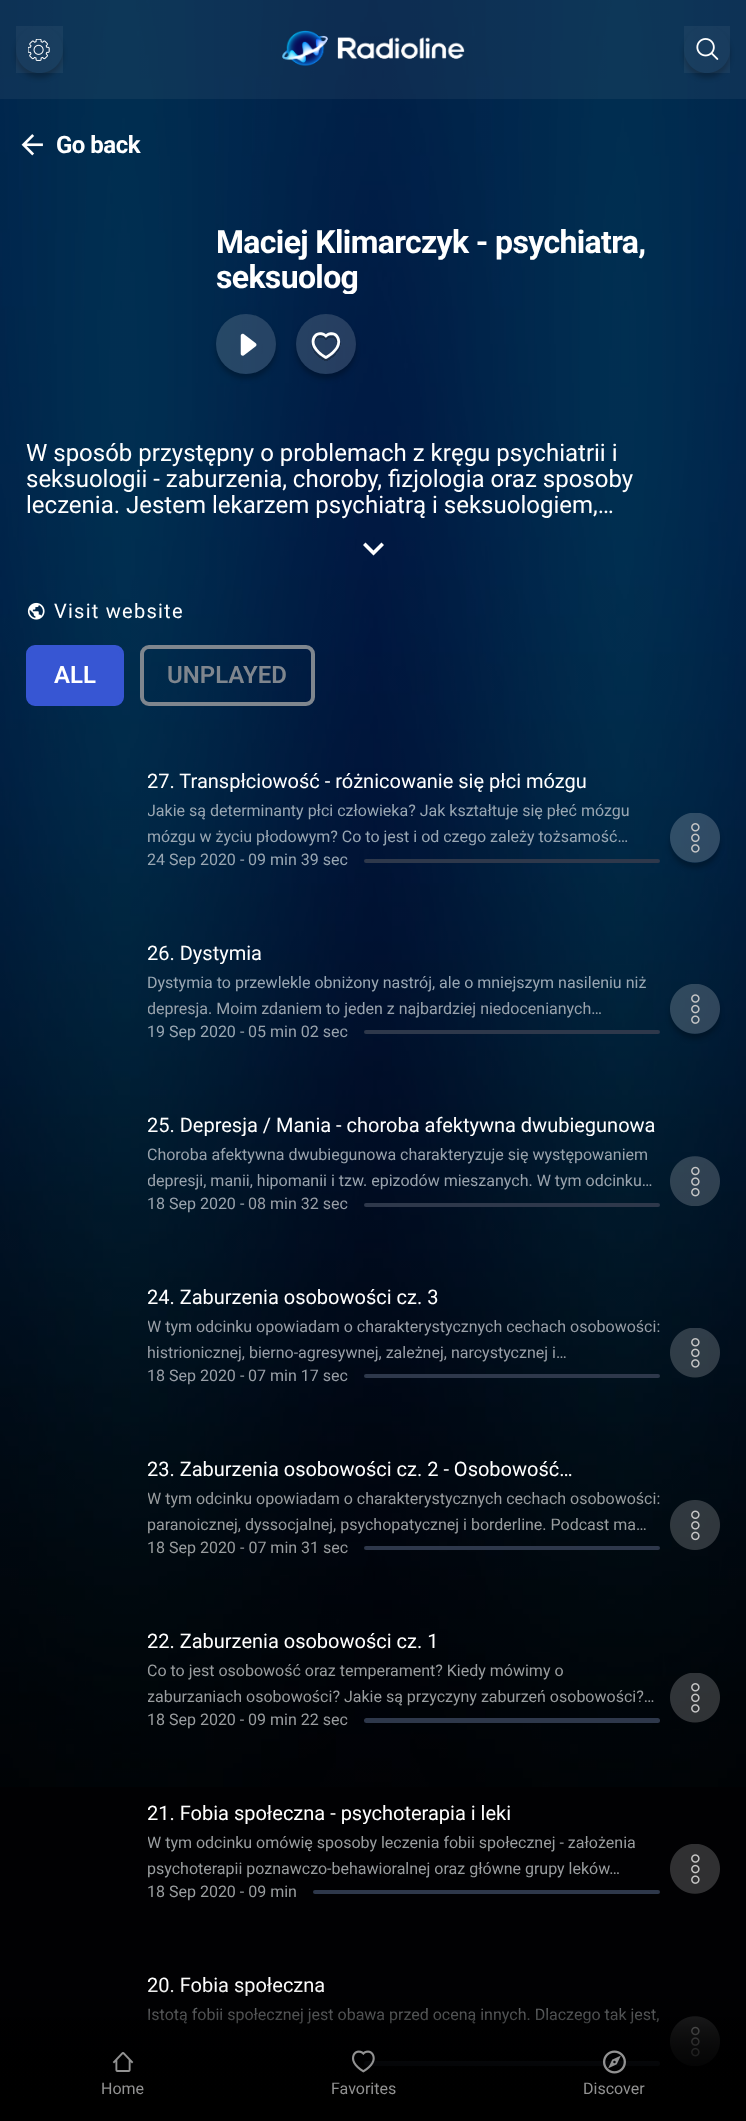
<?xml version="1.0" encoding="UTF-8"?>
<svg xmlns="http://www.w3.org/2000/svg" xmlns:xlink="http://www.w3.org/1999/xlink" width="746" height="2121">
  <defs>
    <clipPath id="clip1"><path d="M 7 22 h 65 v 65 h -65 z m 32.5 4 c 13 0 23.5 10.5 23.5 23.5 c 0 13 -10.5 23.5 -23.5 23.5 c -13 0 -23.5 -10.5 -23.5 -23.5 c 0 -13 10.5 -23.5 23.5 -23.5 z" clip-rule="evenodd" /></clipPath>
    <clipPath id="clip2"><path d="M 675 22 h 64 v 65 h -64 z m 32 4 c 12.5 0 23 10.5 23 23 v 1 c 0 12.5 -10.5 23 -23 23 c -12.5 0 -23 -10.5 -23 -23 v -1 c 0 -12.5 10.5 -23 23 -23 z" clip-rule="evenodd" /></clipPath>
    <clipPath id="clip3"><path d="M 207 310 h 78 v 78 h -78 z m 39 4 c 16.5 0 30 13.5 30 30 c 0 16.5 -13.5 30 -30 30 c -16.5 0 -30 -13.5 -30 -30 c 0 -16.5 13.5 -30 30 -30 z" clip-rule="evenodd" /></clipPath>
    <clipPath id="clip4"><path d="M 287 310 h 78 v 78 h -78 z m 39 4 c 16.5 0 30 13.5 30 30 c 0 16.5 -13.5 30 -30 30 c -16.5 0 -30 -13.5 -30 -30 c 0 -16.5 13.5 -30 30 -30 z" clip-rule="evenodd" /></clipPath>
    <clipPath id="clip5"><path d="M 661 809 h 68 v 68 h -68 z m 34 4 c 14 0 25 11 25 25 c 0 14 -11 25 -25 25 c -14 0 -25 -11 -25 -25 c 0 -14 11 -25 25 -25 z" clip-rule="evenodd" /></clipPath>
    <clipPath id="clip6"><path d="M 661 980 h 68 v 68 h -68 z m 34 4 c 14 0 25 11 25 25 c 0 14 -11 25 -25 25 c -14 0 -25 -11 -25 -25 c 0 -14 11 -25 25 -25 z" clip-rule="evenodd" /></clipPath>
    <clipPath id="clip7"><rect x="216" y="224" width="504" height="70" /></clipPath>
    <clipPath id="clip8"><rect x="148" y="798" width="512" height="52" /></clipPath>
    <clipPath id="clip9"><rect x="148" y="939" width="512" height="25" /></clipPath>
    <clipPath id="clip10"><rect x="148" y="969" width="512" height="54" /></clipPath>
    <clipPath id="clip11"><rect x="148" y="1111" width="512" height="25" /></clipPath>
    <clipPath id="clip12"><rect x="148" y="1141" width="512" height="53" /></clipPath>
    <clipPath id="clip13"><rect x="148" y="1313" width="512" height="53" /></clipPath>
    <clipPath id="clip14"><rect x="148" y="1485" width="512" height="53" /></clipPath>
    <clipPath id="clip15"><rect x="148" y="1658" width="512" height="52" /></clipPath>
    <clipPath id="clip16"><rect x="148" y="1799" width="512" height="25" /></clipPath>
    <clipPath id="clip17"><rect x="148" y="1829" width="512" height="52" /></clipPath>
    <linearGradient id="g1" gradientUnits="userSpaceOnUse" x1="373" y1="1981" x2="373" y2="2121"><stop offset="0" stop-color="#000000" stop-opacity="0" /><stop offset="0.03" stop-color="#000000" stop-opacity="0.01" /><stop offset="0.06" stop-color="#000000" stop-opacity="0.05" /><stop offset="0.09" stop-color="#000000" stop-opacity="0.11" /><stop offset="0.12" stop-color="#000000" stop-opacity="0.18" /><stop offset="0.15" stop-color="#000000" stop-opacity="0.26" /><stop offset="0.19" stop-color="#000000" stop-opacity="0.35" /><stop offset="0.23" stop-color="#000000" stop-opacity="0.45" /><stop offset="0.28" stop-color="#000000" stop-opacity="0.55" /><stop offset="0.34" stop-color="#000000" stop-opacity="0.65" /><stop offset="0.41" stop-color="#000000" stop-opacity="0.74" /><stop offset="0.49" stop-color="#000000" stop-opacity="0.82" /><stop offset="0.59" stop-color="#000000" stop-opacity="0.89" /><stop offset="0.71" stop-color="#000000" stop-opacity="0.95" /><stop offset="0.84" stop-color="#000000" stop-opacity="0.99" /><stop offset="1" stop-color="#000000" /></linearGradient>
  </defs>
  <rect width="100%" height="100%" fill="#010103" />
  <image x="0" y="0" width="746" height="1787" xlink:href="image1.png" />
  <rect width="746" height="99" fill="#ffffff" fill-opacity="0.05" />
  <g clip-path="url(#clip1)">
    <rect x="16" y="31" width="47" height="47" rx="23.5" fill="#000000" fill-opacity="0.25" filter="blur(2.5px)" />
  </g>
  <rect x="16" y="26" width="47" height="47" fill="#ffffff" fill-opacity="0.05" />
  <image x="28" y="39" width="22" height="22" xlink:href="image2.png" />
  <image x="282" y="30" width="183" height="36" xlink:href="image3.png" />
  <g clip-path="url(#clip2)">
    <rect x="684" y="31" width="46" height="47" rx="23" fill="#000000" fill-opacity="0.25" filter="blur(2.5px)" />
  </g>
  <rect x="684" y="26" width="46" height="47" fill="#ffffff" fill-opacity="0.05" />
  <image x="696" y="38" width="23" height="22" xlink:href="image4.png" />
  <image x="21" y="134" width="22" height="22" xlink:href="image5.png" />
  <g clip-path="url(#clip3)">
    <rect x="216" y="319" width="60" height="60" rx="30" fill="#000000" fill-opacity="0.25" filter="blur(2.5px)" />
  </g>
  <circle cx="246" cy="344" r="30" fill="#ffffff" fill-opacity="0.15" />
  <image x="240" y="333" width="17" height="23" xlink:href="image6.png" />
  <g clip-path="url(#clip4)">
    <rect x="296" y="319" width="60" height="60" rx="30" fill="#000000" fill-opacity="0.25" filter="blur(2.5px)" />
  </g>
  <circle cx="326" cy="344" r="30" fill="#ffffff" fill-opacity="0.15" />
  <image x="311" y="332" width="30" height="29" xlink:href="image7.png" />
  <path d="M 365.5 542.5 l 8 8 l 8 -8 l 2.5 2.5 l -10.5 10.5 l -10.5 -10.5 z" fill="#ffffff" />
  <image x="27" y="602" width="18" height="18" xlink:href="image8.png" />
  <rect x="28" y="647" width="94" height="57" rx="7" fill="#3756d3" stroke="#3756d3" stroke-width="4" />
  <rect x="142" y="647" width="171" height="57" rx="7" fill="none" stroke="#7f868e" stroke-width="4" />
  <rect x="364" y="859" width="296" height="4" rx="2" fill="#2e384b" />
  <g clip-path="url(#clip5)">
    <rect x="670" y="818" width="50" height="50" rx="25" fill="#000000" fill-opacity="0.25" filter="blur(2.5px)" />
  </g>
  <image x="670" y="813" width="50" height="50" xlink:href="image9.png" />
  <rect x="364" y="1030" width="296" height="4" rx="2" fill="#2e384b" />
  <g clip-path="url(#clip6)">
    <rect x="670" y="989" width="50" height="50" rx="25" fill="#000000" fill-opacity="0.25" filter="blur(2.5px)" />
  </g>
  <image x="670" y="984" width="50" height="50" xlink:href="image10.png" />
  <rect x="364" y="1203" width="296" height="4" rx="2" fill="#2e384b" />
  <image x="670" y="1156" width="50" height="50" xlink:href="image11.png" />
  <rect x="364" y="1374" width="296" height="4" rx="2" fill="#2e384b" />
  <image x="670" y="1328" width="50" height="50" xlink:href="image12.png" />
  <rect x="364" y="1546" width="296" height="4" rx="2" fill="#2e384b" />
  <image x="670" y="1500" width="50" height="50" xlink:href="image13.png" />
  <rect x="364" y="1718" width="296" height="5" rx="2.5" fill="#2e384b" />
  <image x="670" y="1673" width="50" height="50" xlink:href="image14.png" />
  <rect x="313" y="1890" width="347" height="4" rx="2" fill="#2e384b" />
  <image x="670" y="1844" width="50" height="50" xlink:href="image15.png" />
  <rect x="364" y="2061" width="296" height="5" rx="2.5" fill="#2e384b" />
  <image x="670" y="2016" width="50" height="50" xlink:href="image16.png" />
  <text x="56" y="153" style="font-family: Roboto; font-size: 24px; font-weight: bold; letter-spacing: -0.5px; fill: #ffffff">Go back</text>
  <text x="216" y="253" style="font-family: Roboto; font-size: 32px; font-weight: bold; letter-spacing: -0.65px; fill: #ffffff">Maciej Klimarczyk - psychiatra,</text>
  <g clip-path="url(#clip7)">
    <text x="216" y="288" style="font-family: Roboto; font-size: 32px; font-weight: bold; letter-spacing: -0.65px; fill: #ffffff">seksuolog</text>
  </g>
  <text x="26" y="461" style="font-family: Roboto; font-size: 24px; fill: #ffffff">W sposób przystępny o problemach z kręgu psychiatrii i</text>
  <text x="26" y="487" style="font-family: Roboto; font-size: 24px; fill: #ffffff">seksuologii - zaburzenia, choroby, fizjologia oraz sposoby</text>
  <text x="26" y="513" style="font-family: Roboto; font-size: 24px; fill: #ffffff">leczenia. Jestem lekarzem psychiatrą i seksuologiem,…</text>
  <text x="54" y="618" style="font-family: Roboto; font-size: 20px; letter-spacing: 1.25px; fill: #ffffff">Visit website</text>
  <text x="54" y="683" style="font-family: Roboto; font-size: 24px; font-weight: 600; fill: #ffffff">ALL</text>
  <text x="167" y="683" style="font-family: Roboto; font-size: 24px; font-weight: 600; fill: #7f868e">UNPLAYED</text>
  <text x="147" y="788" style="font-family: Roboto; font-size: 20px; fill: #ffffff">27. Transpłciowość - różnicowanie się płci mózgu</text>
  <g clip-path="url(#clip8)">
    <text x="147" y="816" style="font-family: Roboto; font-size: 16px; fill: #99a7b3">Jakie są determinanty płci człowieka? Jak kształtuje się płeć mózgu</text>
  </g>
  <text x="147" y="842" style="font-family: Roboto; font-size: 16px; fill: #99a7b3">mózgu w życiu płodowym? Co to jest i od czego zależy tożsamość…</text>
  <text x="147" y="865" style="font-family: Roboto; font-size: 16px; fill: #99a7b3">24 Sep 2020</text>
  <text x="240" y="865" style="font-family: Roboto; font-size: 16px; fill: #99a7b3">-</text>
  <text x="248" y="865" style="font-family: Roboto; font-size: 16px; fill: #99a7b3">09 min 39 sec</text>
  <g clip-path="url(#clip9)">
    <text x="147" y="960" style="font-family: Roboto; font-size: 20px; fill: #ffffff">26. Dystymia</text>
  </g>
  <text x="147" y="988" style="font-family: Roboto; font-size: 16px; fill: #99a7b3">Dystymia to przewlekle obniżony nastrój, ale o mniejszym nasileniu niż</text>
  <g clip-path="url(#clip10)">
    <text x="147" y="1014" style="font-family: Roboto; font-size: 16px; fill: #99a3ad">depresja. Moim zdaniem to jeden z najbardziej niedocenianych…</text>
  </g>
  <text x="147" y="1037" style="font-family: Roboto; font-size: 16px; fill: #99a7b3">19 Sep 2020</text>
  <text x="240" y="1037" style="font-family: Roboto; font-size: 16px; fill: #99a3ad">-</text>
  <text x="248" y="1037" style="font-family: Roboto; font-size: 16px; fill: #99a3ad">05 min 02 sec</text>
  <g clip-path="url(#clip11)">
    <text x="147" y="1132" style="font-family: Roboto; font-size: 20px; fill: #ffffff">25. Depresja / Mania - choroba afektywna dwubiegunowa</text>
  </g>
  <text x="147" y="1160" style="font-family: Roboto; font-size: 16px; fill: #99a3ad">Choroba afektywna dwubiegunowa charakteryzuje się występowaniem</text>
  <g clip-path="url(#clip12)">
    <text x="147" y="1186" style="font-family: Roboto; font-size: 16px; fill: #99a3ad">depresji, manii, hipomanii i tzw. epizodów mieszanych. W tym odcinku…</text>
  </g>
  <text x="147" y="1209" style="font-family: Roboto; font-size: 16px; fill: #99a3ad">18 Sep 2020</text>
  <text x="240" y="1209" style="font-family: Roboto; font-size: 16px; fill: #99a3ad">-</text>
  <text x="248" y="1209" style="font-family: Roboto; font-size: 16px; fill: #999fa7">08 min 32 sec</text>
  <text x="147" y="1304" style="font-family: Roboto; font-size: 20px; fill: #ffffff">24. Zaburzenia osobowości cz. 3</text>
  <g clip-path="url(#clip13)">
    <text x="147" y="1332" style="font-family: Roboto; font-size: 16px; fill: #999fa7">W tym odcinku opowiadam o charakterystycznych cechach osobowości:</text>
  </g>
  <text x="147" y="1358" style="font-family: Roboto; font-size: 16px; fill: #999fa7">histrionicznej, bierno-agresywnej, zależnej, narcystycznej i…</text>
  <text x="147" y="1381" style="font-family: Roboto; font-size: 16px; fill: #999fa7">18 Sep 2020</text>
  <text x="240" y="1381" style="font-family: Roboto; font-size: 16px; fill: #999fa7">-</text>
  <text x="248" y="1381" style="font-family: Roboto; font-size: 16px; fill: #999fa7">07 min 17 sec</text>
  <text x="147" y="1476" style="font-family: Roboto; font-size: 20px; fill: #ffffff">23. Zaburzenia osobowości cz. 2 - Osobowość…</text>
  <g clip-path="url(#clip14)">
    <text x="147" y="1504" style="font-family: Roboto; font-size: 16px; fill: #999d9f">W tym odcinku opowiadam o charakterystycznych cechach osobowości:</text>
  </g>
  <text x="147" y="1530" style="font-family: Roboto; font-size: 16px; fill: #999d9f">paranoicznej, dyssocjalnej, psychopatycznej i borderline. Podcast ma…</text>
  <text x="147" y="1553" style="font-family: Roboto; font-size: 16px; fill: #999d9f">18 Sep 2020</text>
  <text x="240" y="1553" style="font-family: Roboto; font-size: 16px; fill: #999d9f">- 07 min 31 sec</text>
  <text x="147" y="1648" style="font-family: Roboto; font-size: 20px; fill: #ffffff">22. Zaburzenia osobowości cz. 1</text>
  <text x="147" y="1676" style="font-family: Roboto; font-size: 16px; fill: #999d9f">Co to jest osobowość oraz temperament? Kiedy mówimy o</text>
  <g clip-path="url(#clip15)">
    <text x="147" y="1702" style="font-family: Roboto; font-size: 16px; fill: #999d9f">zaburzaniach osobowości? Jakie są przyczyny zaburzeń osobowości?…</text>
  </g>
  <text x="147" y="1725" style="font-family: Roboto; font-size: 16px; fill: #999d9f">18 Sep 2020 -</text>
  <text x="248" y="1725" style="font-family: Roboto; font-size: 16px; fill: #999d9f">09 min 22 sec</text>
  <g clip-path="url(#clip16)">
    <text x="147" y="1820" style="font-family: Roboto; font-size: 20px; fill: #ffffff">21. Fobia społeczna - psychoterapia i leki</text>
  </g>
  <g clip-path="url(#clip17)">
    <text x="147" y="1848" style="font-family: Roboto; font-size: 16px; fill: #999d9f">W tym odcinku omówię sposoby leczenia fobii społecznej - założenia</text>
  </g>
  <text x="147" y="1874" style="font-family: Roboto; font-size: 16px; fill: #999d9f">psychoterapii poznawczo-behawioralnej oraz główne grupy leków…</text>
  <text x="147" y="1897" style="font-family: Roboto; font-size: 16px; fill: #999d9f">18 Sep 2020 - 09 min</text>
  <text x="147" y="1992" style="font-family: Roboto; font-size: 20px; fill: #ffffff">20. Fobia społeczna</text>
  <text x="147" y="2020" style="font-family: Roboto; font-size: 16px; fill: #999d9f">Istotą fobii społecznej jest obawa przed oceną innych. Dlaczego tak jest,</text>
  <rect y="1986" width="746" height="135" fill="url(#g1)" />
  <image x="112" y="2052" width="22" height="20" xlink:href="image17.png" />
  <text x="101" y="2094" style="font-family: Roboto; font-size: 16px; fill: #929292">Home</text>
  <image x="352" y="2050" width="23" height="23" xlink:href="image18.png" />
  <text x="331" y="2094" style="font-family: Roboto; font-size: 16px; fill: #929292">Favorites</text>
  <image x="603" y="2050" width="23" height="24" xlink:href="image19.png" />
  <text x="583" y="2094" style="font-family: Roboto; font-size: 16px; fill: #929292">Discover</text>
</svg>
